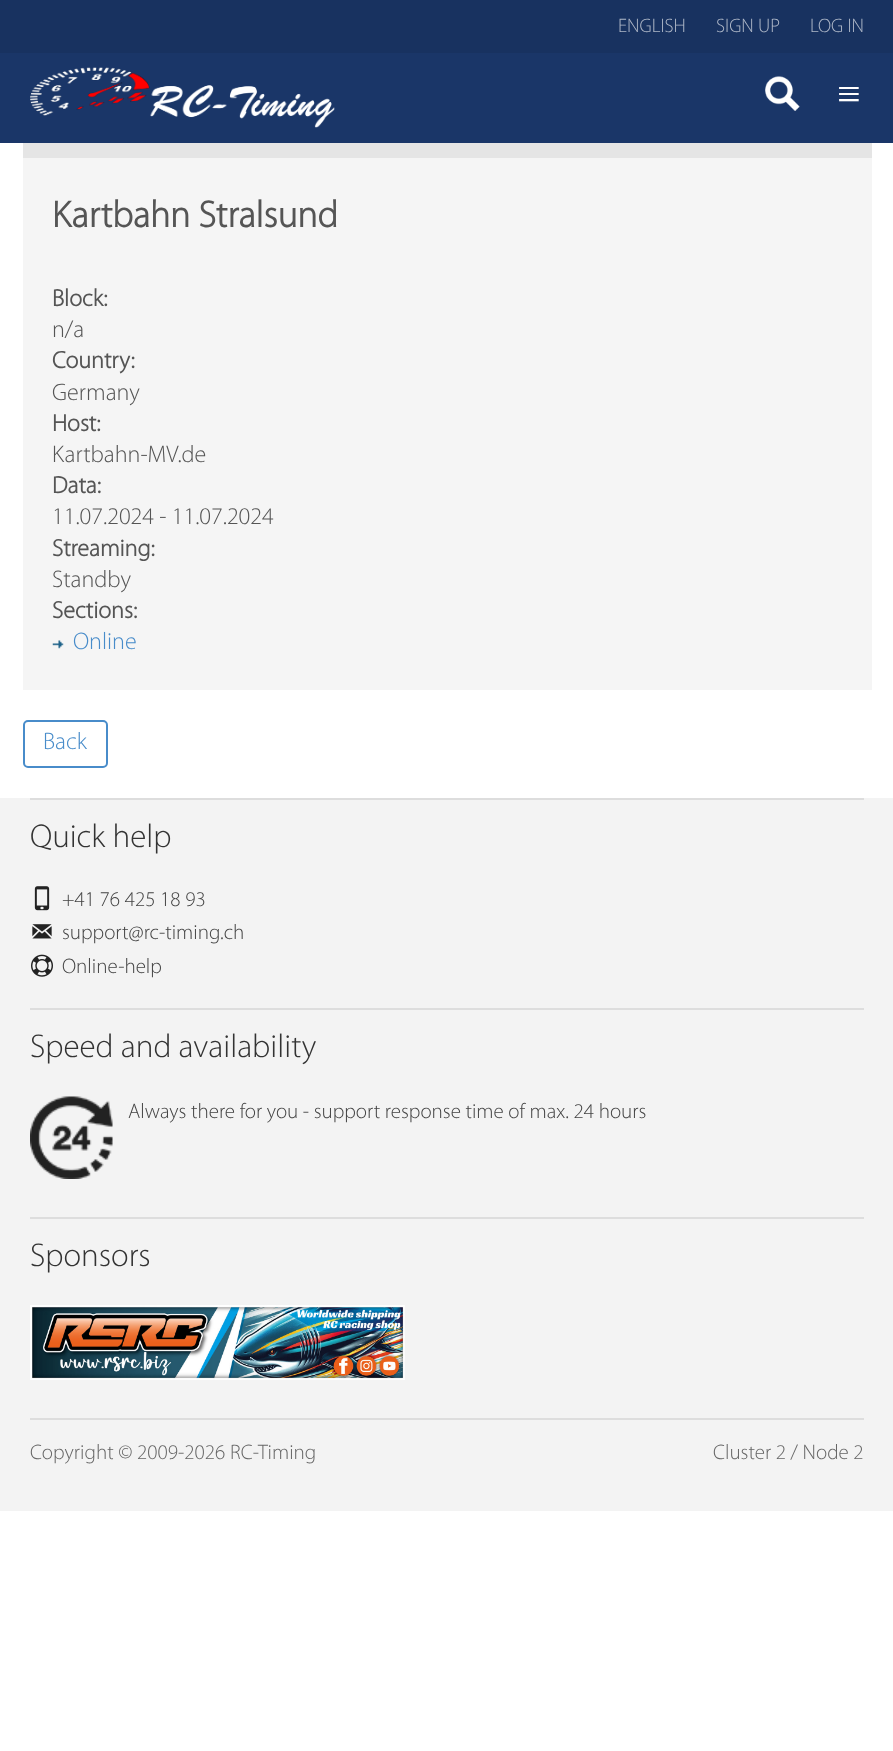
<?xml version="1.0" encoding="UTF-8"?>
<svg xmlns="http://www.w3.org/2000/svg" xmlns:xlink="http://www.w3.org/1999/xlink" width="893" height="1751">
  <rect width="100%" height="100%" fill="#ffffff" />
  <rect y="53" width="893" height="90" fill="#1a3668" />
  <rect width="893" height="53" fill="#183260" />
  <image x="30" y="67" width="305" height="61" xlink:href="image1.png" />
  <image x="765" y="76" width="35" height="35" xlink:href="image2.png" />
  <rect x="23" y="158" width="849" height="532" fill="#f5f5f5" />
  <rect x="23" y="143" width="849" height="15" fill="#e5e5e5" />
  <image x="52" y="640" width="12" height="9" xlink:href="image3.png" />
  <rect x="24" y="721" width="83" height="46" rx="4" fill="none" stroke="#488cca" stroke-width="2" />
  <rect y="798" width="893" height="713" fill="#f3f3f3" />
  <rect x="30" y="798" width="834" height="2" fill="#dddddd" />
  <image x="34" y="886" width="16" height="25" xlink:href="image4.png" />
  <image x="32" y="924" width="20" height="15" xlink:href="image5.png" />
  <image x="31" y="954" width="22" height="23" xlink:href="image6.png" />
  <rect x="30" y="1008" width="834" height="2" fill="#dddddd" />
  <rect x="30" y="1217" width="834" height="2" fill="#dddddd" />
  <image x="30" y="1096" width="83" height="83" xlink:href="image7.png" />
  <image x="30" y="1305" width="375" height="75" xlink:href="image8.png" />
  <rect x="30" y="1418" width="834" height="2" fill="#dddddd" />
  <text x="618" y="32" style="font-family: Myriad; font-size: 19.5px; font-weight: 300; fill: #aeb7c7">ENGLISH</text>
  <text x="716" y="32" style="font-family: Myriad; font-size: 19.5px; font-weight: 300; fill: #aeb7c7">SIGN UP</text>
  <text x="810" y="32" style="font-family: Myriad; font-size: 19.5px; font-weight: 300; fill: #aeb7c7">LOG IN</text>
  <text x="837" y="108" style="font-family: Liberation Serif; font-size: 42px; fill: #ffffff">≡</text>
  <text x="52" y="227" style="font-family: Myriad; font-size: 37.5px; font-weight: bold; fill: #555555">Kartbahn Stralsund</text>
  <text x="52" y="306" style="font-family: Myriad; font-size: 24px; font-weight: bold; fill: #555555">Block:</text>
  <text x="52" y="337" style="font-family: Myriad; font-size: 24px; font-weight: 300; fill: #555555">n/a</text>
  <text x="52" y="368" style="font-family: Myriad; font-size: 24px; font-weight: bold; fill: #555555">Country:</text>
  <text x="52" y="400" style="font-family: Myriad; font-size: 24px; font-weight: 300; fill: #555555">Germany</text>
  <text x="52" y="431" style="font-family: Myriad; font-size: 24px; font-weight: bold; fill: #555555">Host:</text>
  <text x="52" y="462" style="font-family: Myriad; font-size: 24px; font-weight: 300; fill: #555555">Kartbahn-MV.de</text>
  <text x="52" y="493" style="font-family: Myriad; font-size: 24px; font-weight: bold; fill: #555555">Data:</text>
  <text x="52" y="524" style="font-family: Myriad; font-size: 24px; font-weight: 300; fill: #555555">11.07.2024 - 11.07.2024</text>
  <text x="52" y="556" style="font-family: Myriad; font-size: 24px; font-weight: bold; fill: #555555">Streaming:</text>
  <text x="52" y="587" style="font-family: Myriad; font-size: 24px; font-weight: 300; fill: #555555">Standby</text>
  <text x="52" y="618" style="font-family: Myriad; font-size: 24px; font-weight: bold; fill: #555555">Sections:</text>
  <text x="73" y="649" style="font-family: Myriad; font-size: 24px; font-weight: 300; fill: #488cca">Online</text>
  <text x="43" y="749" style="font-family: Myriad; font-size: 24px; font-weight: 300; fill: #488cca">Back</text>
  <text x="30" y="847" style="font-family: Myriad; font-size: 33px; font-weight: 300; fill: #333333">Quick help</text>
  <text x="62" y="906" style="font-family: Myriad; font-size: 21px; font-weight: 300; fill: #444444">+41 76 425 18 93</text>
  <text x="62" y="939" style="font-family: Myriad; font-size: 21px; font-weight: 300; fill: #444444">support@rc-timing.ch</text>
  <text x="62" y="973" style="font-family: Myriad; font-size: 21px; font-weight: 300; fill: #444444">Online-help</text>
  <text x="30" y="1057" style="font-family: Myriad; font-size: 33px; font-weight: 300; fill: #333333">Speed and availability</text>
  <text x="128" y="1118" style="font-family: Myriad; font-size: 21px; font-weight: 300; fill: #444444">Always there for you - support response time of max. 24 hours</text>
  <text x="30" y="1266" style="font-family: Myriad; font-size: 33px; font-weight: 300; fill: #333333">Sponsors</text>
  <text x="30" y="1459" style="font-family: Myriad; font-size: 21px; font-weight: 300; fill: #666666">Copyright © 2009-2026 RC-Timing</text>
  <text x="713" y="1459" style="font-family: Myriad; font-size: 21px; font-weight: 300; fill: #666666">Cluster 2 / Node 2</text>
</svg>
